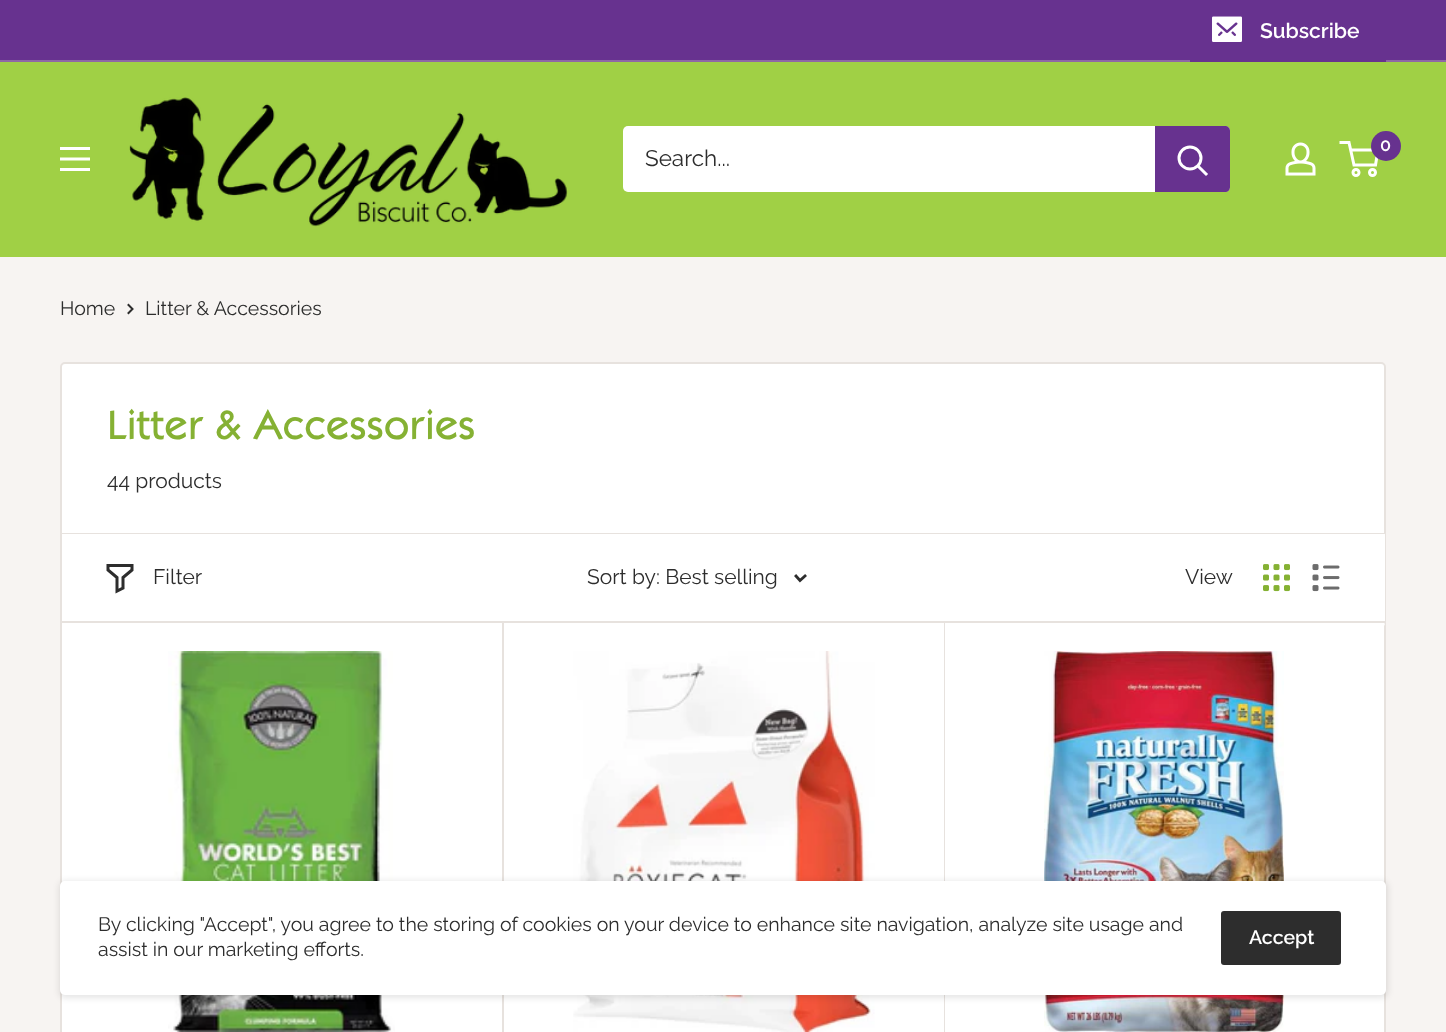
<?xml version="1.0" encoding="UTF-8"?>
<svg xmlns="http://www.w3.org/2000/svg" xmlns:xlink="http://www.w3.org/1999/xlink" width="1446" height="1032">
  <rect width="100%" height="100%" fill="#f7f4f2" />
  <rect width="1446" height="60" fill="#67328f" />
  <rect y="60" width="1446" height="2" fill="#8e67a6" />
  <rect x="1190" y="60" width="196" height="2" fill="#67328f" />
  <image x="1212" y="16" width="30" height="26" xlink:href="image1.png" />
  <rect y="62" width="1446" height="195" fill="#a0d045" />
  <image x="60" y="147" width="30" height="24" xlink:href="image2.png" />
  <image x="129" y="97" width="439" height="130" xlink:href="image3.png" />
  <rect x="623" y="126" width="607" height="66" rx="5" fill="#ffffff" />
  <path d="M 1155 126 h 70 c 3 0 5 2 5 5 v 56 c 0 3 -2 5 -5 5 h -70 z" fill="#67328f" />
  <path d="M 1206 174 l -7.5 -7.5" fill="none" stroke="#ffffff" stroke-width="3" stroke-linecap="square" />
  <circle cx="1190" cy="158" r="11" fill="none" stroke="#ffffff" stroke-width="3" />
  <image x="1285" y="142" width="31" height="34" xlink:href="image4.png" />
  <circle cx="1356" cy="172.5" r="3" fill="none" stroke="#ffffff" stroke-width="3" />
  <circle cx="1372.5" cy="172.5" r="3" fill="none" stroke="#ffffff" stroke-width="3" />
  <path d="M 1350.5 150 h 27.5 l -2.5 15 h -21.5 l -5 -22.5 h -9.5" fill="none" stroke="#ffffff" stroke-width="3" />
  <circle cx="1386" cy="146" r="15" fill="#67328f" />
  <path d="M 128.5 305 l 4 4 l -4 4" fill="none" stroke="#2d2d2d" stroke-width="2" stroke-linecap="square" />
  <rect x="61" y="363" width="1324" height="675" rx="4" fill="#ffffff" stroke="#e7e2de" stroke-width="2" />
  <path d="M 62 533 v 1 h 1322 v 86 h 1 v -87 z" fill="#e7e2de" />
  <rect x="62" y="621" width="1323" height="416" rx="5" fill="#ffffff" />
  <path d="M 63 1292 h 441 v -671 h -2 v 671 z" fill="#e7e2de" />
  <path d="M 944 621 h 436 c 3 0 5 2 5 5 v 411 h -441 z" fill="#ffffff" />
  <path d="M 504 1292 h 441 v -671 h -1 v 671 z" fill="#e7e2de" />
  <path d="M 62 621 v 2 h 1323 v -87 h -1 v 85 z" fill="#e7e2de" />
  <rect x="1384" y="534" width="1" height="87" fill="#ffffff" />
  <path d="M 132 570 l -9 7.5 v 10.5 l -6 3 v -13.5 l -9 -7.5 v -4.5 h 24 z" fill="none" stroke="#2d2d2d" stroke-width="3" stroke-linecap="square" />
  <path d="M 805 576 l -5 4.5 l -4 -4.5" fill="none" stroke="#2d2d2d" stroke-width="2.8" stroke-linecap="square" />
  <image x="1263" y="564" width="27" height="28" xlink:href="image5.png" />
  <image x="1312" y="564" width="28" height="28" xlink:href="image6.png" />
  <image x="168" y="651" width="227" height="381" xlink:href="image7.png" />
  <image x="573" y="651" width="302" height="381" xlink:href="image8.png" />
  <image x="1044" y="651" width="240" height="381" xlink:href="image9.png" />
  <path d="M 945 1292 h 440 v -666 l -1 -2 v 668 z" fill="#e7e2de" />
  <rect x="59" y="881" width="1329" height="117" rx="6" fill="#000000" fill-opacity="0.1" filter="blur(3px)" />
  <rect x="60" y="881" width="1326" height="114" rx="5" fill="#ffffff" />
  <rect x="1221" y="911" width="120" height="54" rx="3" fill="#2d2d2d" />
  <text x="1260" y="38" style="font-family: Raleway; font-size: 21px; font-weight: 600; fill: #ffffff">Subscribe</text>
  <text x="645" y="166" style="font-family: Raleway; font-size: 22.5px; fill: #2d2d2d">Search...</text>
  <text x="1380" y="151" style="font-family: Raleway; font-size: 18px; font-weight: 600; fill: #ffffff">0</text>
  <text x="60" y="315" style="font-family: Raleway; font-size: 19.5px; fill: #2d2d2d">Home</text>
  <text x="145" y="315" style="font-family: Raleway; font-size: 19.5px; fill: #2d2d2d">Litter &amp; Accessories</text>
  <text x="107" y="439" style="font-family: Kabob; font-size: 42px; fill: #85b133">Litter &amp; Accessories</text>
  <text x="107" y="488" style="font-family: Raleway; font-size: 21px; fill: #2d2d2d">44 products</text>
  <text x="153" y="584" style="font-family: Raleway; font-size: 21px; fill: #2d2d2d">Filter</text>
  <text x="587" y="584" style="font-family: Raleway; font-size: 21px; fill: #2d2d2d">Sort by: Best selling</text>
  <text x="1185" y="584" style="font-family: Raleway; font-size: 21px; fill: #2d2d2d">View</text>
  <text x="98" y="931" style="font-family: Raleway; font-size: 19.5px; fill: #2d2d2d">By clicking "Accept", you agree to the storing of cookies on your device to enhance site navigation, analyze site usage and</text>
  <text x="98" y="956" style="font-family: Raleway; font-size: 19.5px; fill: #2d2d2d">assist in our marketing efforts.</text>
  <text x="1249" y="944" style="font-family: Raleway; font-size: 19.5px; font-weight: 600; fill: #ffffff">Accept</text>
</svg>
